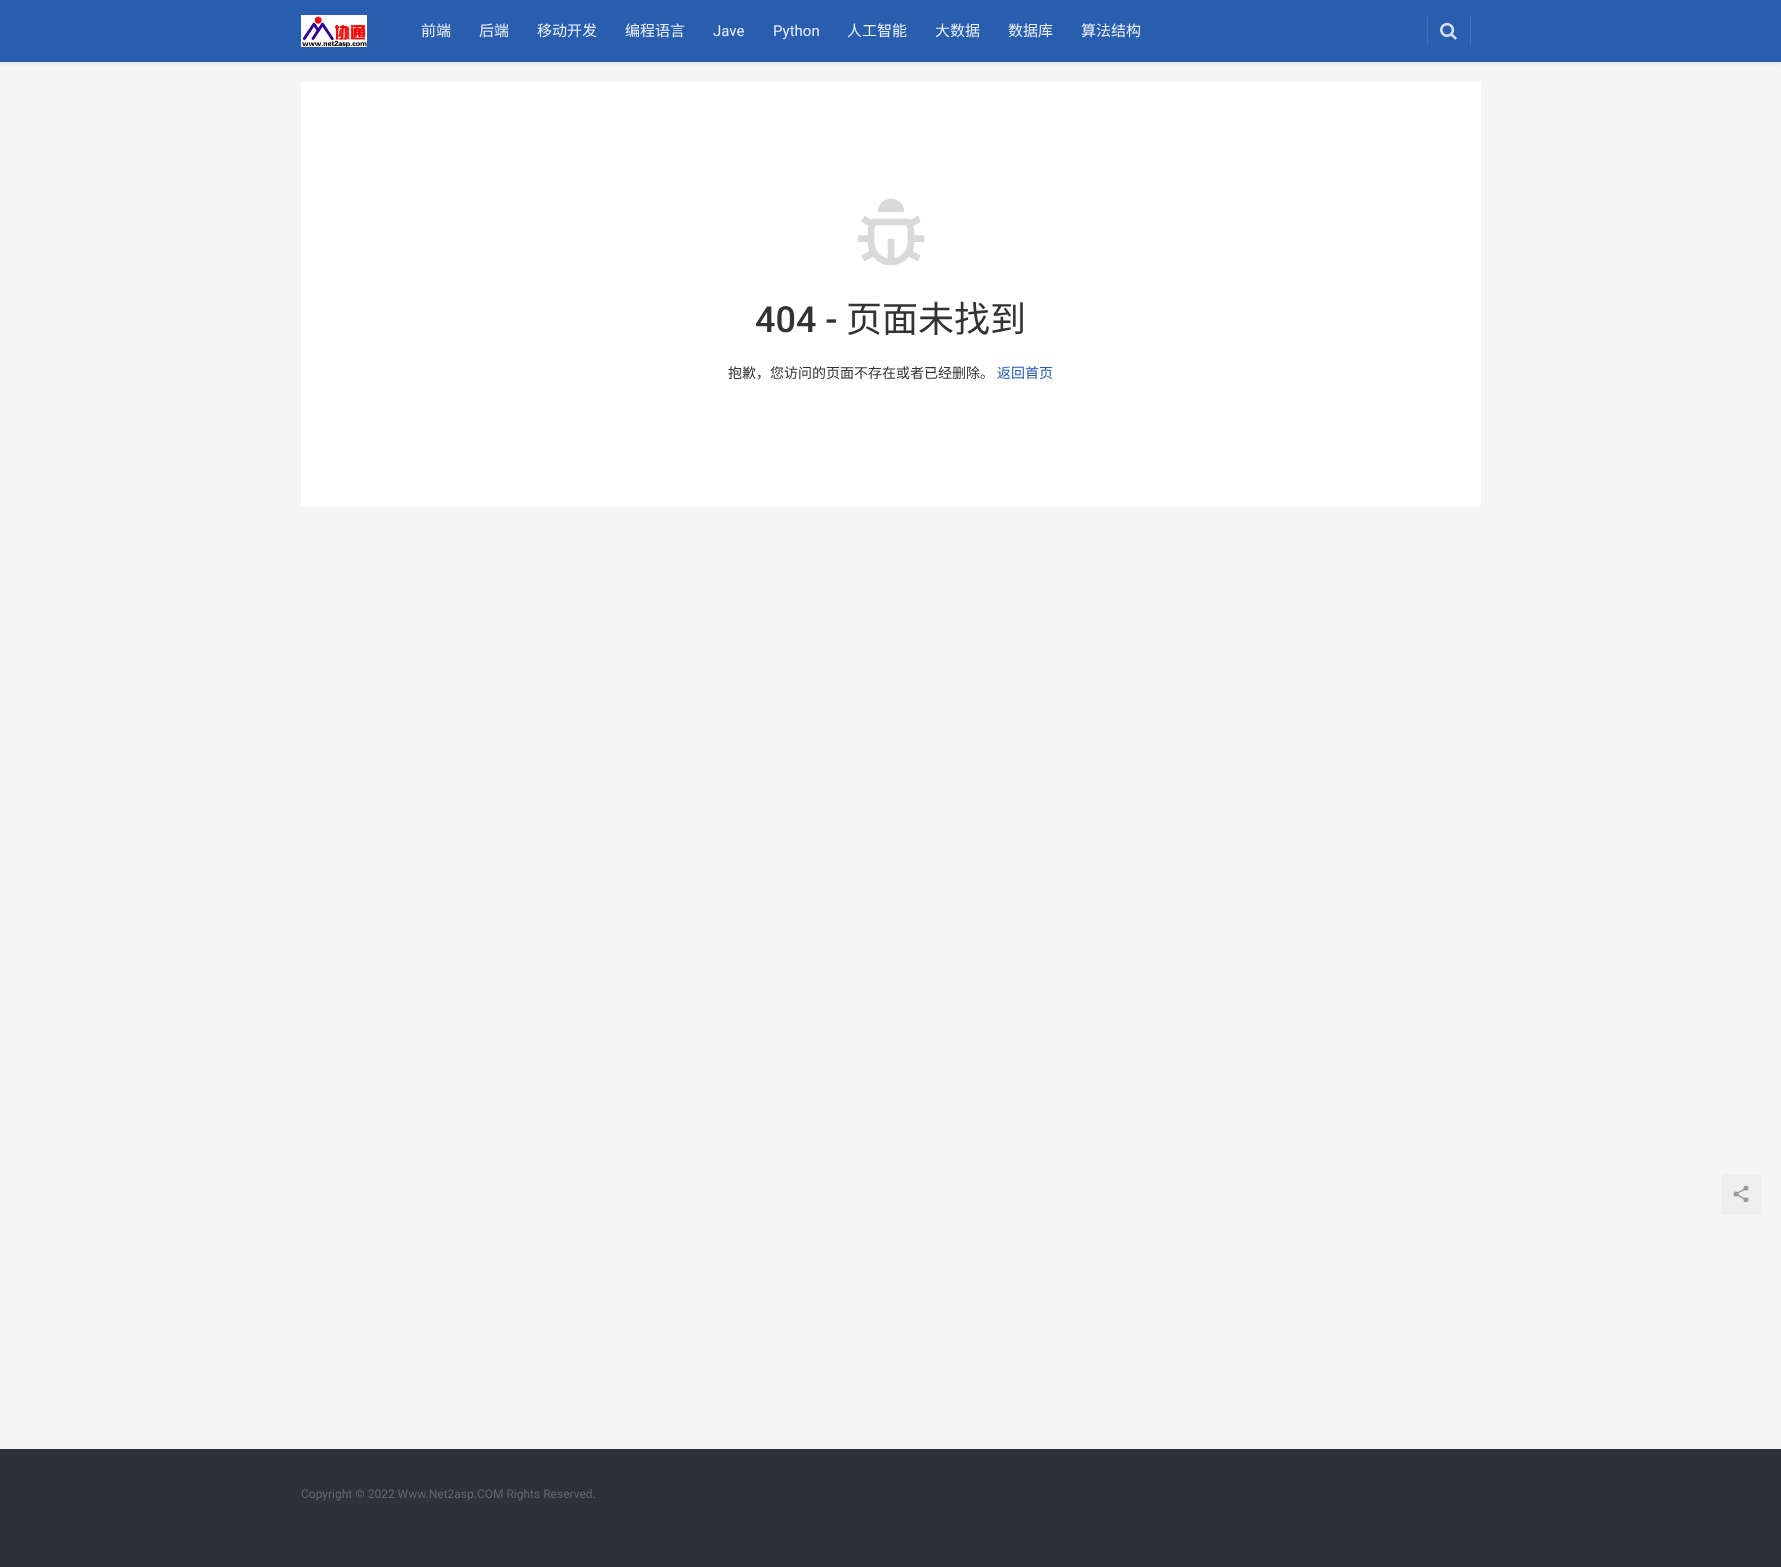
<?xml version="1.0" encoding="UTF-8"?>
<svg xmlns="http://www.w3.org/2000/svg" xmlns:xlink="http://www.w3.org/1999/xlink" width="1781" height="1567">
  <rect width="100%" height="100%" fill="#f5f5f5" />
  <rect x="-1" y="-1" width="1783" height="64" fill="#000000" fill-opacity="0.1" filter="blur(1.5px)" />
  <rect width="1781" height="62" fill="#295dad" />
  <image x="301" y="15" width="66" height="32" xlink:href="image1.png" />
  <rect x="1470" y="16" width="1" height="30" fill="#3e6db5" />
  <rect x="1427" y="16" width="1" height="30" fill="#3e6db5" />
  <image x="1440" y="22" width="17" height="18" xlink:href="image2.png" />
  <rect x="301" y="82" width="1180" height="424" fill="#ffffff" />
  <image x="857" y="198" width="68" height="68" xlink:href="image3.png" />
  <path d="M 1724 1174 h 34 c 1.5 0 3 1.5 3 3 v 37 h -40 v -37 c 0 -1.5 1.5 -3 3 -3 z" fill="#eeeeee" />
  <image x="1733" y="1185" width="16" height="18" xlink:href="image4.png" />
  <rect y="1449" width="1781" height="118" fill="#2d3237" />
  <text x="421" y="36" style="font-family: Noto Sans CJK SC; font-size: 15px; fill: #eaeff7">前端</text>
  <text x="479" y="36" style="font-family: Noto Sans CJK SC; font-size: 15px; fill: #eaeff7">后端</text>
  <text x="537" y="36" style="font-family: Noto Sans CJK SC; font-size: 15px; fill: #eaeff7">移动开发</text>
  <text x="625" y="36" style="font-family: Noto Sans CJK SC; font-size: 15px; fill: #eaeff7">编程语言</text>
  <text x="713" y="36" style="font-family: Roboto; font-size: 15px; fill: #eaeff7">Jave</text>
  <text x="773" y="36" style="font-family: Roboto; font-size: 15px; fill: #eaeff7">Python</text>
  <text x="847" y="36" style="font-family: Noto Sans CJK SC; font-size: 15px; fill: #eaeff7">人工智能</text>
  <text x="935" y="36" style="font-family: Noto Sans CJK SC; font-size: 15px; fill: #eaeff7">大数据</text>
  <text x="1008" y="36" style="font-family: Noto Sans CJK SC; font-size: 15px; fill: #eaeff7">数据库</text>
  <text x="1081" y="36" style="font-family: Noto Sans CJK SC; font-size: 15px; fill: #eaeff7">算法结构</text>
  <text x="755" y="332" style="font-family: Roboto; font-size: 36px; font-weight: 500; fill: #333333">404 -</text>
  <text x="846" y="332" style="font-family: Noto Sans CJK SC; font-size: 36px; fill: #333333">页面未找到</text>
  <text x="728" y="378" style="font-family: Noto Sans CJK SC; font-size: 14px; fill: #333333">抱歉，您访问的页面不存在或者已经删除。</text>
  <text x="997" y="378" style="font-family: Noto Sans CJK SC; font-size: 14px; fill: #295dad">返回首页</text>
  <text x="301" y="1498" style="font-family: Roboto; font-size: 12px; fill: #5f676f">Copyright © 2022 Www.Net2asp.COM Rights Reserved.</text>
</svg>
